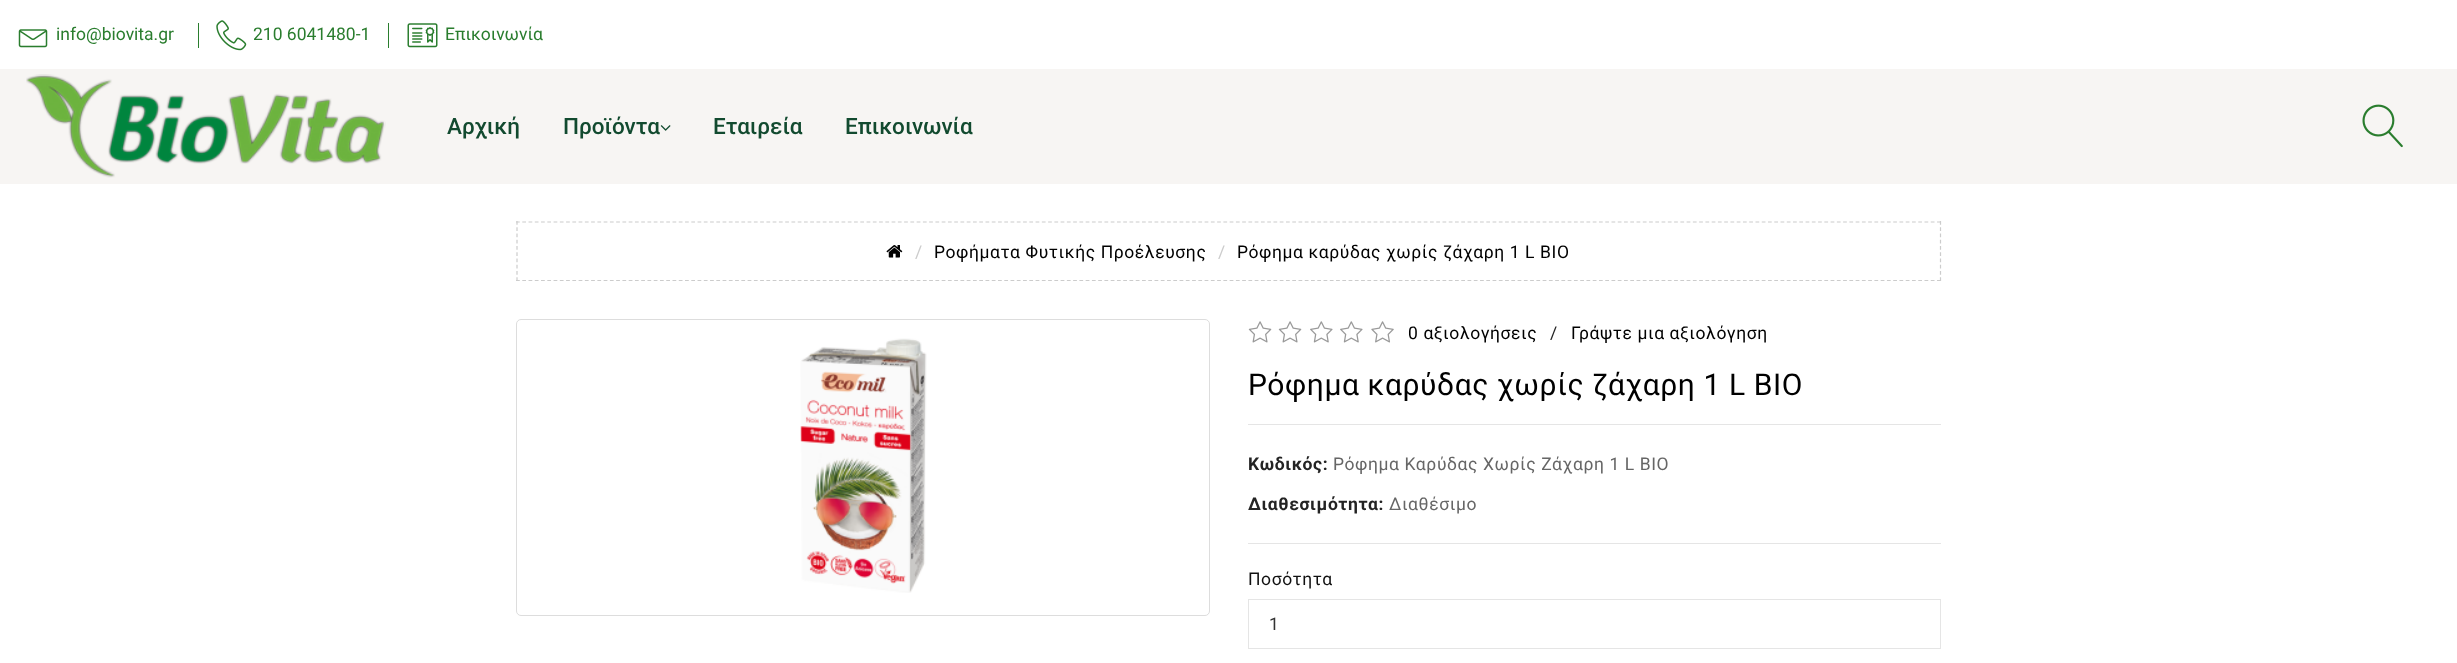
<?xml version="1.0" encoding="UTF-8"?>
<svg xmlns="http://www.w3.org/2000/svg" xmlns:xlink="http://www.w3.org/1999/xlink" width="2457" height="663">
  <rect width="100%" height="100%" fill="#ffffff" />
  <image x="18" y="29" width="30" height="19" xlink:href="image1.png" />
  <rect x="198" y="23" width="1" height="25" fill="#2a7d2e" />
  <image x="216" y="20" width="31" height="31" xlink:href="image2.png" />
  <rect x="388" y="23" width="1" height="25" fill="#2a7d2e" />
  <image x="407" y="23" width="31" height="25" xlink:href="image3.png" />
  <rect y="69" width="2457" height="115" fill="#f7f5f3" />
  <image x="26" y="74" width="360" height="104" xlink:href="image4.png" />
  <image x="660" y="125" width="11" height="6" xlink:href="image5.png" />
  <image x="2362" y="104" width="41" height="44" xlink:href="image6.png" />
  <path d="M 516 222 h 1425" fill="none" stroke="#cccccc" stroke-width="1.2" stroke-dasharray="3.75 2.51" />
  <path d="M 1940.5 221 v 60" fill="none" stroke="#cccccc" stroke-width="1.2" stroke-dasharray="3.75 2.5" />
  <path d="M 516 280.5 h 1425" fill="none" stroke="#cccccc" stroke-width="1.2" stroke-dasharray="3.75 2.51" />
  <path d="M 517 221 v 60" fill="none" stroke="#cccccc" stroke-width="1.2" stroke-dasharray="3.75 2.5" />
  <image x="886" y="245" width="17" height="13" xlink:href="image7.png" />
  <rect x="516.5" y="319.5" width="693" height="296" rx="4.5" fill="none" stroke="#dddddd" />
  <image x="800" y="338" width="127" height="255" xlink:href="image8.png" />
  <image x="1248" y="321" width="24" height="22" xlink:href="image9.png" />
  <image x="1278" y="321" width="24" height="22" xlink:href="image9.png" />
  <image x="1310" y="321" width="23" height="22" xlink:href="image10.png" />
  <image x="1340" y="321" width="23" height="22" xlink:href="image10.png" />
  <image x="1371" y="321" width="23" height="22" xlink:href="image11.png" />
  <rect x="1248" y="424" width="693" height="1" fill="#e5e5e5" />
  <rect x="1248" y="543" width="693" height="1" fill="#e5e5e5" />
  <rect x="1248.5" y="599.5" width="692" height="49" fill="none" stroke="#e5e5e5" />
  <text x="56" y="40" style="font-family: Roboto; font-size: 17.5px; fill: #2a7d2e">info@biovita.gr</text>
  <text x="253" y="40" style="font-family: Roboto; font-size: 17.5px; fill: #2a7d2e">210 6041480-1</text>
  <text x="445" y="40" style="font-family: Roboto; font-size: 17.5px; fill: #2a7d2e">Επικοινωνία</text>
  <text x="447" y="134" style="font-family: Roboto; font-size: 22.5px; font-weight: 500; fill: #124a2f">Αρχική</text>
  <text x="563" y="134" style="font-family: Roboto; font-size: 22.5px; font-weight: 500; fill: #124a2f">Προϊόντα</text>
  <text x="713" y="134" style="font-family: Roboto; font-size: 22.5px; font-weight: 500; fill: #124a2f">Εταιρεία</text>
  <text x="845" y="134" style="font-family: Roboto; font-size: 22.5px; font-weight: 500; fill: #124a2f">Επικοινωνία</text>
  <text x="915" y="258" style="font-family: Roboto; font-size: 17.5px; letter-spacing: 0.6px; fill: #cccccc">/</text>
  <text x="934" y="258" style="font-family: Roboto; font-size: 17.5px; letter-spacing: 0.6px; fill: #000000">Ροφήματα Φυτικής Προέλευσης</text>
  <text x="1218" y="258" style="font-family: Roboto; font-size: 17.5px; letter-spacing: 0.6px; fill: #cccccc">/</text>
  <text x="1237" y="258" style="font-family: Roboto; font-size: 17.5px; letter-spacing: 0.6px; fill: #000000">Ρόφημα καρύδας χωρίς ζάχαρη 1 L BIO</text>
  <text x="1408" y="339" style="font-family: Roboto; font-size: 17.5px; letter-spacing: 0.6px; fill: #000000">0 αξιολογήσεις</text>
  <text x="1550" y="339" style="font-family: Roboto; font-size: 17.5px; letter-spacing: 0.6px; fill: #232323">/</text>
  <text x="1571" y="339" style="font-family: Roboto; font-size: 17.5px; letter-spacing: 0.6px; fill: #000000">Γράψτε μια αξιολόγηση</text>
  <text x="1248" y="395" style="font-family: Roboto; font-size: 30px; letter-spacing: 0.6px; fill: #000000">Ρόφημα καρύδας χωρίς ζάχαρη 1 L BIO</text>
  <text x="1248" y="470" style="font-family: Roboto; font-size: 17.5px; font-weight: bold; letter-spacing: 0.6px; fill: #232323">Κωδικός:</text>
  <text x="1333" y="470" style="font-family: Roboto; font-size: 17.5px; letter-spacing: 0.6px; fill: #666666">Ρόφημα Καρύδας Χωρίς Ζάχαρη 1 L BIO</text>
  <text x="1248" y="510" style="font-family: Roboto; font-size: 17.5px; font-weight: bold; letter-spacing: 0.6px; fill: #232323">Διαθεσιμότητα:</text>
  <text x="1389" y="510" style="font-family: Roboto; font-size: 17.5px; letter-spacing: 0.6px; fill: #666666">Διαθέσιμο</text>
  <text x="1248" y="585" style="font-family: Roboto; font-size: 17.5px; letter-spacing: 0.6px; fill: #111111">Ποσότητα</text>
  <text x="1269" y="630" style="font-family: Roboto; font-size: 17.5px; fill: #333333">1</text>
</svg>
